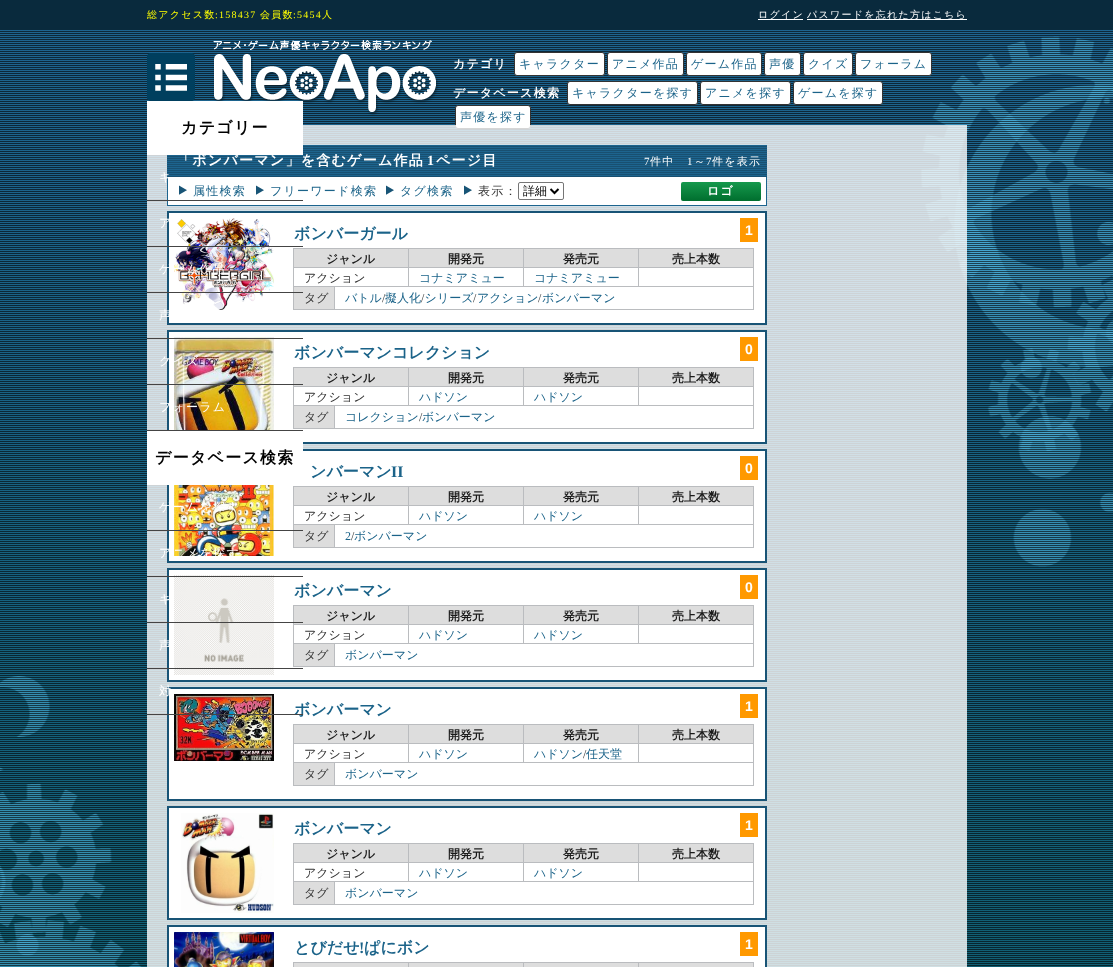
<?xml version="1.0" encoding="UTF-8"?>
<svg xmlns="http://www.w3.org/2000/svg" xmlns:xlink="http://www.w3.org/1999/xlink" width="1113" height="967">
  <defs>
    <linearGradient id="g1" gradientUnits="userSpaceOnUse" x1="556" y1="0" x2="557" y2="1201"><stop offset="0" stop-color="#1e6490" /><stop offset="1" stop-color="#0d5e6d" /></linearGradient>
    <linearGradient id="g2" gradientUnits="userSpaceOnUse" x1="721" y1="182" x2="721" y2="201"><stop offset="0" stop-color="#16994d" /><stop offset="1" stop-color="#006e2e" /></linearGradient>
  </defs>
  <rect width="100%" height="100%" fill="#ffffff" />
  <rect y="30" width="1113" height="937" fill="url(#g1)" />
  <rect width="1113" height="30" fill="#092a3d" />
  <rect x="758" y="19" width="45" height="1" fill="#ffffff" />
  <rect x="807" y="19" width="160" height="1" fill="#ffffff" />
  <image x="920" y="36" width="193" height="531" xlink:href="image1.png" />
  <image x="0" y="676" width="142" height="291" xlink:href="image2.png" />
  <image x="0" y="31" width="1113" height="935" xlink:href="image3.png" />
  <image x="213" y="40" width="226" height="75" xlink:href="image4.png" />
  <rect x="514.5" y="52.5" width="90" height="23" rx="2.5" fill="#ffffff" stroke="#333333" />
  <rect x="607.5" y="52.5" width="76" height="23" rx="2.5" fill="#ffffff" stroke="#333333" />
  <rect x="686.5" y="52.5" width="75" height="23" rx="2.5" fill="#ffffff" stroke="#333333" />
  <rect x="764.5" y="52.5" width="36" height="23" rx="2.5" fill="#ffffff" stroke="#333333" />
  <rect x="803.5" y="52.5" width="49" height="23" rx="2.5" fill="#ffffff" stroke="#333333" />
  <rect x="855.5" y="52.5" width="76" height="23" rx="2.5" fill="#ffffff" stroke="#333333" />
  <rect x="567.5" y="81.5" width="130" height="23" rx="2.5" fill="#ffffff" stroke="#333333" />
  <rect x="700.5" y="81.5" width="90" height="23" rx="2.5" fill="#ffffff" stroke="#333333" />
  <rect x="793.5" y="81.5" width="89" height="23" rx="2.5" fill="#ffffff" stroke="#333333" />
  <rect x="455.5" y="105.5" width="75" height="23" rx="2.5" fill="#ffffff" stroke="#333333" />
  <rect x="147" y="125" width="820" height="842" fill="#ffffff" fill-opacity="0.8" />
  <image x="147" y="53" width="48" height="48" xlink:href="image5.png" />
  <rect x="167" y="145" width="600" height="32" fill="#1d648e" />
  <image x="167" y="146" width="600" height="31" xlink:href="image6.png" />
  <rect x="147" y="101" width="156" height="54" fill="#ffffff" />
  <rect x="168" y="177" width="598" height="28" fill="#ffffff" />
  <rect x="766" y="177" width="1" height="29" fill="#1d648e" />
  <rect x="167" y="205" width="600" height="1" fill="#1d648e" />
  <rect x="167" y="177" width="1" height="29" fill="#1d648e" />
  <rect x="147" y="200" width="156" height="1" fill="#444444" />
  <rect x="168" y="212" width="598" height="112" fill="#ffffff" stroke="#185476" stroke-width="2" />
  <image x="174" y="218" width="100" height="92" xlink:href="image8.png" />
  <rect x="147" y="246" width="156" height="1" fill="#444444" />
  <rect x="294" y="287" width="40" height="22" fill="#dddddd" />
  <rect x="293" y="248" width="1" height="39" fill="#babcbf" />
  <rect x="293.5" y="286.5" width="45" height="23" fill="none" stroke="#babcbf" />
  <rect x="147" y="292" width="156" height="1" fill="#444444" />
  <rect x="168" y="331" width="598" height="112" fill="#ffffff" stroke="#185476" stroke-width="2" />
  <image x="174" y="337" width="100" height="93" xlink:href="image9.png" />
  <rect x="147" y="338" width="156" height="1" fill="#444444" />
  <rect x="293" y="367" width="1" height="39" fill="#babcbf" />
  <rect x="294" y="368" width="459" height="18" fill="#dddddd" />
  <rect x="147" y="384" width="156" height="1" fill="#444444" />
  <rect x="147" y="430" width="156" height="1" fill="#444444" />
  <rect x="168" y="450" width="598" height="112" fill="#ffffff" stroke="#185476" stroke-width="2" />
  <rect x="147" y="431" width="156" height="54" fill="#ffffff" />
  <image x="174" y="485" width="100" height="71" xlink:href="image10.png" />
  <rect x="294" y="525" width="40" height="22" fill="#dddddd" />
  <rect x="293" y="486" width="1" height="39" fill="#babcbf" />
  <rect x="293.5" y="524.5" width="45" height="23" fill="none" stroke="#babcbf" />
  <rect x="147" y="530" width="156" height="1" fill="#444444" />
  <rect x="168" y="569" width="598" height="112" fill="#ffffff" stroke="#185476" stroke-width="2" />
  <image x="174" y="575" width="100" height="100" xlink:href="image11.png" />
  <rect x="147" y="576" width="156" height="1" fill="#444444" />
  <rect x="293" y="605" width="1" height="39" fill="#babcbf" />
  <rect x="294" y="606" width="459" height="18" fill="#dddddd" />
  <rect x="147" y="622" width="156" height="1" fill="#444444" />
  <rect x="147" y="668" width="156" height="1" fill="#444444" />
  <image x="179" y="185" width="8" height="10" xlink:href="image7.png" />
  <image x="256" y="185" width="8" height="10" xlink:href="image7.png" />
  <image x="386" y="185" width="8" height="10" xlink:href="image7.png" />
  <image x="464" y="185" width="8" height="10" xlink:href="image7.png" />
  <rect x="518.5" y="182.5" width="45" height="17" rx="1.5" fill="none" stroke="#767676" />
  <path d="M 550.5 189 l 4 4 l 4 -4" fill="none" stroke="#000000" stroke-width="2" />
  <rect x="681" y="182" width="80" height="19" rx="2" fill="url(#g2)" />
  <rect x="740" y="218" width="18" height="24" fill="#ff9900" />
  <rect x="294" y="249" width="459" height="18" fill="#dddddd" />
  <rect x="294" y="248" width="460" height="1" fill="#babcbf" />
  <rect x="408" y="248" width="1" height="39" fill="#babcbf" />
  <rect x="294" y="267" width="115" height="1" fill="#babcbf" />
  <rect x="523" y="248" width="1" height="39" fill="#babcbf" />
  <rect x="409" y="267" width="115" height="1" fill="#babcbf" />
  <rect x="638" y="248" width="1" height="39" fill="#babcbf" />
  <rect x="524" y="267" width="115" height="1" fill="#babcbf" />
  <rect x="753" y="248" width="1" height="39" fill="#babcbf" />
  <rect x="639" y="267" width="115" height="1" fill="#babcbf" />
  <rect x="338" y="287" width="1" height="22" fill="#ffffff" />
  <rect x="334.5" y="286.5" width="419" height="23" fill="none" stroke="#babcbf" />
  <rect x="740" y="337" width="18" height="24" fill="#ff9900" />
  <rect x="294" y="367" width="460" height="1" fill="#babcbf" />
  <rect x="408" y="367" width="1" height="39" fill="#babcbf" />
  <rect x="294" y="386" width="115" height="1" fill="#babcbf" />
  <rect x="523" y="367" width="1" height="39" fill="#babcbf" />
  <rect x="409" y="386" width="115" height="1" fill="#babcbf" />
  <rect x="638" y="367" width="1" height="39" fill="#babcbf" />
  <rect x="524" y="386" width="115" height="1" fill="#babcbf" />
  <rect x="753" y="367" width="1" height="39" fill="#babcbf" />
  <rect x="639" y="386" width="115" height="1" fill="#babcbf" />
  <rect x="294" y="406" width="40" height="22" fill="#dddddd" />
  <rect x="293.5" y="405.5" width="45" height="23" fill="none" stroke="#babcbf" />
  <rect x="338" y="406" width="1" height="22" fill="#ffffff" />
  <rect x="334.5" y="405.5" width="419" height="23" fill="none" stroke="#babcbf" />
  <rect x="740" y="456" width="18" height="24" fill="#ff9900" />
  <rect x="294" y="487" width="459" height="18" fill="#dddddd" />
  <rect x="294" y="486" width="460" height="1" fill="#babcbf" />
  <rect x="408" y="486" width="1" height="39" fill="#babcbf" />
  <rect x="294" y="505" width="115" height="1" fill="#babcbf" />
  <rect x="523" y="486" width="1" height="39" fill="#babcbf" />
  <rect x="409" y="505" width="115" height="1" fill="#babcbf" />
  <rect x="638" y="486" width="1" height="39" fill="#babcbf" />
  <rect x="524" y="505" width="115" height="1" fill="#babcbf" />
  <rect x="753" y="486" width="1" height="39" fill="#babcbf" />
  <rect x="639" y="505" width="115" height="1" fill="#babcbf" />
  <rect x="338" y="525" width="1" height="22" fill="#ffffff" />
  <rect x="334.5" y="524.5" width="419" height="23" fill="none" stroke="#babcbf" />
  <rect x="740" y="575" width="18" height="24" fill="#ff9900" />
  <rect x="294" y="605" width="460" height="1" fill="#babcbf" />
  <rect x="408" y="605" width="1" height="39" fill="#babcbf" />
  <rect x="294" y="624" width="115" height="1" fill="#babcbf" />
  <rect x="523" y="605" width="1" height="39" fill="#babcbf" />
  <rect x="409" y="624" width="115" height="1" fill="#babcbf" />
  <rect x="638" y="605" width="1" height="39" fill="#babcbf" />
  <rect x="524" y="624" width="115" height="1" fill="#babcbf" />
  <rect x="753" y="605" width="1" height="39" fill="#babcbf" />
  <rect x="639" y="624" width="115" height="1" fill="#babcbf" />
  <rect x="294" y="644" width="40" height="22" fill="#dddddd" />
  <rect x="293.5" y="643.5" width="45" height="23" fill="none" stroke="#babcbf" />
  <rect x="338" y="644" width="1" height="22" fill="#ffffff" />
  <rect x="334.5" y="643.5" width="419" height="23" fill="none" stroke="#babcbf" />
  <rect x="168" y="688" width="598" height="112" fill="#ffffff" stroke="#185476" stroke-width="2" />
  <image x="174" y="694" width="100" height="67" xlink:href="image12.png" />
  <rect x="740" y="694" width="18" height="24" fill="#ff9900" />
  <rect x="293" y="724" width="1" height="39" fill="#babcbf" />
  <rect x="294" y="725" width="459" height="18" fill="#dddddd" />
  <rect x="294" y="724" width="460" height="1" fill="#babcbf" />
  <rect x="408" y="724" width="1" height="39" fill="#babcbf" />
  <rect x="294" y="743" width="115" height="1" fill="#babcbf" />
  <rect x="523" y="724" width="1" height="39" fill="#babcbf" />
  <rect x="409" y="743" width="115" height="1" fill="#babcbf" />
  <rect x="638" y="724" width="1" height="39" fill="#babcbf" />
  <rect x="524" y="743" width="115" height="1" fill="#babcbf" />
  <rect x="753" y="724" width="1" height="39" fill="#babcbf" />
  <rect x="639" y="743" width="115" height="1" fill="#babcbf" />
  <rect x="294" y="763" width="40" height="22" fill="#dddddd" />
  <rect x="293.5" y="762.5" width="45" height="23" fill="none" stroke="#babcbf" />
  <rect x="338" y="763" width="1" height="22" fill="#ffffff" />
  <rect x="334.5" y="762.5" width="419" height="23" fill="none" stroke="#babcbf" />
  <rect x="168" y="807" width="598" height="112" fill="#ffffff" stroke="#185476" stroke-width="2" />
  <image x="181" y="813" width="93" height="100" xlink:href="image13.png" />
  <rect x="740" y="813" width="18" height="24" fill="#ff9900" />
  <rect x="293" y="843" width="1" height="39" fill="#babcbf" />
  <rect x="294" y="844" width="459" height="18" fill="#dddddd" />
  <rect x="294" y="843" width="460" height="1" fill="#babcbf" />
  <rect x="408" y="843" width="1" height="39" fill="#babcbf" />
  <rect x="294" y="862" width="115" height="1" fill="#babcbf" />
  <rect x="523" y="843" width="1" height="39" fill="#babcbf" />
  <rect x="409" y="862" width="115" height="1" fill="#babcbf" />
  <rect x="638" y="843" width="1" height="39" fill="#babcbf" />
  <rect x="524" y="862" width="115" height="1" fill="#babcbf" />
  <rect x="753" y="843" width="1" height="39" fill="#babcbf" />
  <rect x="639" y="862" width="115" height="1" fill="#babcbf" />
  <rect x="294" y="882" width="40" height="22" fill="#dddddd" />
  <rect x="293.5" y="881.5" width="45" height="23" fill="none" stroke="#babcbf" />
  <rect x="338" y="882" width="1" height="22" fill="#ffffff" />
  <rect x="334.5" y="881.5" width="419" height="23" fill="none" stroke="#babcbf" />
  <rect x="168" y="926" width="598" height="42" fill="#ffffff" stroke="#185476" stroke-width="2" />
  <image x="174" y="932" width="100" height="35" xlink:href="image14.png" />
  <rect x="740" y="932" width="18" height="24" fill="#ff9900" />
  <rect x="293" y="963" width="461" height="4" fill="#dddddd" />
  <rect x="293" y="962" width="1" height="5" fill="#babcbf" />
  <rect x="294" y="962" width="460" height="1" fill="#babcbf" />
  <rect x="408" y="962" width="1" height="5" fill="#babcbf" />
  <rect x="523" y="962" width="1" height="5" fill="#babcbf" />
  <rect x="638" y="962" width="1" height="5" fill="#babcbf" />
  <rect x="753" y="962" width="1" height="5" fill="#babcbf" />
  <text x="147" y="18" style="font-family: WenQuanYi Zen Hei; font-size: 10px; font-weight: 500; letter-spacing: 1.25px; fill: #ffff00">総アクセス数</text>
  <text x="215" y="18" style="font-family: Liberation Serif; font-size: 10px; letter-spacing: 1.25px; fill: #ffff00">:158437</text>
  <text x="260" y="18" style="font-family: WenQuanYi Zen Hei; font-size: 10px; font-weight: 500; letter-spacing: 1.25px; fill: #ffff00">会員数</text>
  <text x="293" y="18" style="font-family: Liberation Serif; font-size: 10px; letter-spacing: 1.25px; fill: #ffff00">:5454</text>
  <text x="322" y="18" style="font-family: WenQuanYi Zen Hei; font-size: 10px; font-weight: 500; letter-spacing: 1.25px; fill: #ffff00">人</text>
  <text x="758" y="18" style="font-family: WenQuanYi Zen Hei; font-size: 10px; font-weight: 500; letter-spacing: 1.25px; fill: #ffffff">ログイン</text>
  <text x="807" y="18" style="font-family: WenQuanYi Zen Hei; font-size: 10px; font-weight: 500; letter-spacing: 1.25px; fill: #ffffff">パスワードを忘れた方はこちら</text>
  <text x="453" y="68" style="font-family: WenQuanYi Zen Hei; font-size: 12px; font-weight: bold; letter-spacing: 1.25px; fill: #ffffff">カテゴリ</text>
  <text x="519" y="68" style="font-family: WenQuanYi Zen Hei; font-size: 12px; font-weight: 500; letter-spacing: 1.25px; fill: #1b6389">キャラクター</text>
  <text x="612" y="68" style="font-family: WenQuanYi Zen Hei; font-size: 12px; font-weight: 500; letter-spacing: 1.25px; fill: #1b6389">アニメ作品</text>
  <text x="691" y="68" style="font-family: WenQuanYi Zen Hei; font-size: 12px; font-weight: 500; letter-spacing: 1.25px; fill: #1b6389">ゲーム作品</text>
  <text x="769" y="68" style="font-family: WenQuanYi Zen Hei; font-size: 12px; font-weight: 500; letter-spacing: 1.25px; fill: #1b6389">声優</text>
  <text x="808" y="68" style="font-family: WenQuanYi Zen Hei; font-size: 12px; font-weight: 500; letter-spacing: 1.25px; fill: #1b6389">クイズ</text>
  <text x="860" y="68" style="font-family: WenQuanYi Zen Hei; font-size: 12px; font-weight: 500; letter-spacing: 1.25px; fill: #1b6389">フォーラム</text>
  <text x="453" y="97" style="font-family: WenQuanYi Zen Hei; font-size: 12px; font-weight: bold; letter-spacing: 1.25px; fill: #ffffff">データベース検索</text>
  <text x="572" y="97" style="font-family: WenQuanYi Zen Hei; font-size: 12px; font-weight: 500; letter-spacing: 1.25px; fill: #1b6389">キャラクターを探す</text>
  <text x="705" y="97" style="font-family: WenQuanYi Zen Hei; font-size: 12px; font-weight: 500; letter-spacing: 1.25px; fill: #1b6389">アニメを探す</text>
  <text x="798" y="97" style="font-family: WenQuanYi Zen Hei; font-size: 12px; font-weight: 500; letter-spacing: 1.25px; fill: #1b6389">ゲームを探す</text>
  <text x="460" y="121" style="font-family: WenQuanYi Zen Hei; font-size: 12px; font-weight: 500; letter-spacing: 1.25px; fill: #1b6389">声優を探す</text>
  <text x="181" y="133" style="font-family: WenQuanYi Zen Hei; font-size: 16px; font-weight: bold; letter-spacing: 1.25px; fill: #000000">カテゴリー</text>
  <text x="159" y="181" style="font-family: WenQuanYi Zen Hei; font-size: 12px; font-weight: 500; letter-spacing: 1.25px; fill: #ffffff">キ</text>
  <text x="159" y="227" style="font-family: WenQuanYi Zen Hei; font-size: 12px; font-weight: 500; letter-spacing: 1.25px; fill: #ffffff">ア</text>
  <text x="159" y="273" style="font-family: WenQuanYi Zen Hei; font-size: 12px; font-weight: 500; letter-spacing: 1.25px; fill: #ffffff">ゲーム作品</text>
  <text x="159" y="319" style="font-family: WenQuanYi Zen Hei; font-size: 12px; font-weight: 500; letter-spacing: 1.25px; fill: #ffffff">声</text>
  <text x="159" y="365" style="font-family: WenQuanYi Zen Hei; font-size: 12px; font-weight: 500; letter-spacing: 1.25px; fill: #ffffff">クイズ</text>
  <text x="159" y="411" style="font-family: WenQuanYi Zen Hei; font-size: 12px; font-weight: 500; letter-spacing: 1.25px; fill: #ffffff">フォーラム</text>
  <text x="155" y="463" style="font-family: WenQuanYi Zen Hei; font-size: 16px; font-weight: bold; letter-spacing: 1.25px; fill: #000000">データベース検索</text>
  <text x="159" y="511" style="font-family: WenQuanYi Zen Hei; font-size: 12px; font-weight: 500; letter-spacing: 1.25px; fill: #ffffff">ゲームを探す</text>
  <text x="159" y="557" style="font-family: WenQuanYi Zen Hei; font-size: 12px; font-weight: 500; letter-spacing: 1.25px; fill: #ffffff">アニメを探す</text>
  <text x="159" y="603" style="font-family: WenQuanYi Zen Hei; font-size: 12px; font-weight: 500; letter-spacing: 1.25px; fill: #ffffff">キ</text>
  <text x="159" y="649" style="font-family: WenQuanYi Zen Hei; font-size: 12px; font-weight: 500; letter-spacing: 1.25px; fill: #ffffff">声</text>
  <text x="159" y="695" style="font-family: WenQuanYi Zen Hei; font-size: 12px; font-weight: 500; letter-spacing: 1.25px; fill: #ffffff">対</text>
  <text x="177" y="165" style="font-family: WenQuanYi Zen Hei; font-size: 14px; font-weight: bold; letter-spacing: 1.25px; fill: #ffffff">「ボンバーマン」を含むゲーム作品</text>
  <text x="427" y="165" style="font-family: Liberation Serif; font-size: 14px; font-weight: bold; letter-spacing: 1.25px; fill: #ffffff">1</text>
  <text x="436" y="165" style="font-family: WenQuanYi Zen Hei; font-size: 14px; font-weight: bold; letter-spacing: 1.25px; fill: #ffffff">ページ目</text>
  <text x="644" y="165" style="font-family: Liberation Serif; font-size: 11px; letter-spacing: 1.25px; fill: #ffffff">7</text>
  <text x="650" y="165" style="font-family: WenQuanYi Zen Hei; font-size: 11px; font-weight: 500; letter-spacing: 1.25px; fill: #ffffff">件中</text>
  <text x="687" y="165" style="font-family: Liberation Serif; font-size: 11px; letter-spacing: 1.25px; fill: #ffffff">1</text>
  <text x="694" y="165" style="font-family: WenQuanYi Zen Hei; font-size: 11px; font-weight: 500; letter-spacing: 1.25px; fill: #ffffff">～</text>
  <text x="706" y="165" style="font-family: Liberation Serif; font-size: 11px; letter-spacing: 1.25px; fill: #ffffff">7</text>
  <text x="712" y="165" style="font-family: WenQuanYi Zen Hei; font-size: 11px; font-weight: 500; letter-spacing: 1.25px; fill: #ffffff">件を表示</text>
  <text x="193" y="195" style="font-family: WenQuanYi Zen Hei; font-size: 12px; font-weight: 500; letter-spacing: 1.25px; fill: #1b6389">属性検索</text>
  <text x="270" y="195" style="font-family: WenQuanYi Zen Hei; font-size: 12px; font-weight: 500; letter-spacing: 1.25px; fill: #1b6389">フリーワード検索</text>
  <text x="400" y="195" style="font-family: WenQuanYi Zen Hei; font-size: 12px; font-weight: 500; letter-spacing: 1.25px; fill: #1b6389">タグ検索</text>
  <text x="478" y="195" style="font-family: WenQuanYi Zen Hei; font-size: 12px; font-weight: 500; letter-spacing: 1.25px; fill: #333333">表示：</text>
  <text x="523" y="195" style="font-family: WenQuanYi Zen Hei; font-size: 12px; font-weight: 500; fill: #000000">詳細</text>
  <text x="707" y="195" style="font-family: WenQuanYi Zen Hei; font-size: 12px; font-weight: bold; letter-spacing: 1.25px; fill: #ffffff">ロゴ</text>
  <text x="294" y="239" style="font-family: WenQuanYi Zen Hei; font-size: 16px; font-weight: bold; fill: #1b6389">ボンバーガール</text>
  <text x="745" y="235" style="font-family: Liberation Sans; font-size: 14px; font-weight: bold; fill: #ffffff">1</text>
  <text x="326" y="263" style="font-family: WenQuanYi Zen Hei; font-size: 12px; font-weight: bold; fill: #1a1a1a">ジャンル</text>
  <text x="448" y="263" style="font-family: WenQuanYi Zen Hei; font-size: 12px; font-weight: bold; fill: #1a1a1a">開発元</text>
  <text x="563" y="263" style="font-family: WenQuanYi Zen Hei; font-size: 12px; font-weight: bold; fill: #1a1a1a">発売元</text>
  <text x="672" y="263" style="font-family: WenQuanYi Zen Hei; font-size: 12px; font-weight: bold; fill: #1a1a1a">売上本数</text>
  <text x="304" y="282" style="font-family: WenQuanYi Zen Hei; font-size: 12px; font-weight: 500; fill: #333333">アクション</text>
  <text x="419" y="282" style="font-family: WenQuanYi Zen Hei; font-size: 12px; font-weight: 500; fill: #1b6389">コナミアミュー</text>
  <text x="534" y="282" style="font-family: WenQuanYi Zen Hei; font-size: 12px; font-weight: 500; fill: #1b6389">コナミアミュー</text>
  <text x="304" y="302" style="font-family: WenQuanYi Zen Hei; font-size: 12px; font-weight: 500; fill: #333333">タグ</text>
  <text x="345" y="302" style="font-family: WenQuanYi Zen Hei; font-size: 12px; font-weight: 500; fill: #1b6389">バトル</text>
  <text x="382" y="302" style="font-family: Liberation Serif; font-size: 12px; fill: #333333">/</text>
  <text x="385" y="302" style="font-family: WenQuanYi Zen Hei; font-size: 12px; font-weight: 500; fill: #1b6389">擬人化 シリーズ アクション</text>
  <text x="421" y="302" style="font-family: Liberation Serif; font-size: 12px; fill: #333333">/</text>
  <text x="473" y="302" style="font-family: Liberation Serif; font-size: 12px; fill: #333333">/</text>
  <text x="538" y="302" style="font-family: Liberation Serif; font-size: 12px; fill: #333333">/</text>
  <text x="542" y="302" style="font-family: WenQuanYi Zen Hei; font-size: 12px; font-weight: 500; fill: #1b6389">ボンバーマン</text>
  <text x="294" y="358" style="font-family: WenQuanYi Zen Hei; font-size: 16px; font-weight: bold; fill: #1b6389">ボンバーマンコレクション</text>
  <text x="745" y="354" style="font-family: Liberation Sans; font-size: 14px; font-weight: bold; fill: #ffffff">0</text>
  <text x="326" y="382" style="font-family: WenQuanYi Zen Hei; font-size: 12px; font-weight: bold; fill: #1a1a1a">ジャンル</text>
  <text x="448" y="382" style="font-family: WenQuanYi Zen Hei; font-size: 12px; font-weight: bold; fill: #1a1a1a">開発元</text>
  <text x="563" y="382" style="font-family: WenQuanYi Zen Hei; font-size: 12px; font-weight: bold; fill: #1a1a1a">発売元</text>
  <text x="672" y="382" style="font-family: WenQuanYi Zen Hei; font-size: 12px; font-weight: bold; fill: #1a1a1a">売上本数</text>
  <text x="304" y="401" style="font-family: WenQuanYi Zen Hei; font-size: 12px; font-weight: 500; fill: #333333">アクション</text>
  <text x="419" y="401" style="font-family: WenQuanYi Zen Hei; font-size: 12px; font-weight: 500; fill: #1b6389">ハドソン</text>
  <text x="534" y="401" style="font-family: WenQuanYi Zen Hei; font-size: 12px; font-weight: 500; fill: #1b6389">ハドソン</text>
  <text x="304" y="421" style="font-family: WenQuanYi Zen Hei; font-size: 12px; font-weight: 500; fill: #333333">タグ</text>
  <text x="345" y="421" style="font-family: WenQuanYi Zen Hei; font-size: 12px; font-weight: 500; fill: #1b6389">コレクション</text>
  <text x="419" y="421" style="font-family: Liberation Serif; font-size: 12px; fill: #333333">/</text>
  <text x="422" y="421" style="font-family: WenQuanYi Zen Hei; font-size: 12px; font-weight: 500; fill: #1b6389">ボンバーマン</text>
  <text x="310" y="477" style="font-family: WenQuanYi Zen Hei; font-size: 16px; font-weight: bold; fill: #1b6389">ンバーマン</text>
  <text x="391" y="477" style="font-family: Liberation Serif; font-size: 16px; font-weight: bold; fill: #1b6389">II</text>
  <text x="745" y="473" style="font-family: Liberation Sans; font-size: 14px; font-weight: bold; fill: #ffffff">0</text>
  <text x="326" y="501" style="font-family: WenQuanYi Zen Hei; font-size: 12px; font-weight: bold; fill: #1a1a1a">ジャンル</text>
  <text x="448" y="501" style="font-family: WenQuanYi Zen Hei; font-size: 12px; font-weight: bold; fill: #1a1a1a">開発元</text>
  <text x="563" y="501" style="font-family: WenQuanYi Zen Hei; font-size: 12px; font-weight: bold; fill: #1a1a1a">発売元</text>
  <text x="672" y="501" style="font-family: WenQuanYi Zen Hei; font-size: 12px; font-weight: bold; fill: #1a1a1a">売上本数</text>
  <text x="304" y="520" style="font-family: WenQuanYi Zen Hei; font-size: 12px; font-weight: 500; fill: #333333">アクション</text>
  <text x="419" y="520" style="font-family: WenQuanYi Zen Hei; font-size: 12px; font-weight: 500; fill: #1b6389">ハドソン</text>
  <text x="534" y="520" style="font-family: WenQuanYi Zen Hei; font-size: 12px; font-weight: 500; fill: #1b6389">ハドソン</text>
  <text x="304" y="540" style="font-family: WenQuanYi Zen Hei; font-size: 12px; font-weight: 500; fill: #333333">タグ</text>
  <text x="345" y="540" style="font-family: Liberation Serif; font-size: 12px; fill: #1b6389">2</text>
  <text x="351" y="540" style="font-family: Liberation Serif; font-size: 12px; fill: #333333">/</text>
  <text x="354" y="540" style="font-family: WenQuanYi Zen Hei; font-size: 12px; font-weight: 500; fill: #1b6389">ボンバーマン</text>
  <text x="294" y="596" style="font-family: WenQuanYi Zen Hei; font-size: 16px; font-weight: bold; fill: #1b6389">ボンバーマン</text>
  <text x="745" y="592" style="font-family: Liberation Sans; font-size: 14px; font-weight: bold; fill: #ffffff">0</text>
  <text x="326" y="620" style="font-family: WenQuanYi Zen Hei; font-size: 12px; font-weight: bold; fill: #1a1a1a">ジャンル</text>
  <text x="448" y="620" style="font-family: WenQuanYi Zen Hei; font-size: 12px; font-weight: bold; fill: #1a1a1a">開発元</text>
  <text x="563" y="620" style="font-family: WenQuanYi Zen Hei; font-size: 12px; font-weight: bold; fill: #1a1a1a">発売元</text>
  <text x="672" y="620" style="font-family: WenQuanYi Zen Hei; font-size: 12px; font-weight: bold; fill: #1a1a1a">売上本数</text>
  <text x="304" y="639" style="font-family: WenQuanYi Zen Hei; font-size: 12px; font-weight: 500; fill: #333333">アクション</text>
  <text x="419" y="639" style="font-family: WenQuanYi Zen Hei; font-size: 12px; font-weight: 500; fill: #1b6389">ハドソン</text>
  <text x="534" y="639" style="font-family: WenQuanYi Zen Hei; font-size: 12px; font-weight: 500; fill: #1b6389">ハドソン</text>
  <text x="304" y="659" style="font-family: WenQuanYi Zen Hei; font-size: 12px; font-weight: 500; fill: #333333">タグ</text>
  <text x="345" y="659" style="font-family: WenQuanYi Zen Hei; font-size: 12px; font-weight: 500; fill: #1b6389">ボンバーマン</text>
  <text x="294" y="715" style="font-family: WenQuanYi Zen Hei; font-size: 16px; font-weight: bold; fill: #1b6389">ボンバーマン</text>
  <rect x="147" y="714" width="156" height="1" fill="#444444" />
  <text x="745" y="711" style="font-family: Liberation Sans; font-size: 14px; font-weight: bold; fill: #ffffff">1</text>
  <text x="326" y="739" style="font-family: WenQuanYi Zen Hei; font-size: 12px; font-weight: bold; fill: #1a1a1a">ジャンル</text>
  <text x="448" y="739" style="font-family: WenQuanYi Zen Hei; font-size: 12px; font-weight: bold; fill: #1a1a1a">開発元</text>
  <text x="563" y="739" style="font-family: WenQuanYi Zen Hei; font-size: 12px; font-weight: bold; fill: #1a1a1a">発売元</text>
  <text x="672" y="739" style="font-family: WenQuanYi Zen Hei; font-size: 12px; font-weight: bold; fill: #1a1a1a">売上本数</text>
  <text x="304" y="758" style="font-family: WenQuanYi Zen Hei; font-size: 12px; font-weight: 500; fill: #333333">アクション</text>
  <text x="419" y="758" style="font-family: WenQuanYi Zen Hei; font-size: 12px; font-weight: 500; fill: #1b6389">ハドソン</text>
  <text x="534" y="758" style="font-family: WenQuanYi Zen Hei; font-size: 12px; font-weight: 500; fill: #1b6389">ハドソン</text>
  <text x="583" y="758" style="font-family: Liberation Serif; font-size: 12px; fill: #333333">/</text>
  <text x="586" y="758" style="font-family: WenQuanYi Zen Hei; font-size: 12px; font-weight: 500; fill: #1b6389">任天堂</text>
  <text x="304" y="778" style="font-family: WenQuanYi Zen Hei; font-size: 12px; font-weight: 500; fill: #333333">タグ</text>
  <text x="345" y="778" style="font-family: WenQuanYi Zen Hei; font-size: 12px; font-weight: 500; fill: #1b6389">ボンバーマン</text>
  <text x="294" y="834" style="font-family: WenQuanYi Zen Hei; font-size: 16px; font-weight: bold; fill: #1b6389">ボンバーマン</text>
  <text x="745" y="830" style="font-family: Liberation Sans; font-size: 14px; font-weight: bold; fill: #ffffff">1</text>
  <text x="326" y="858" style="font-family: WenQuanYi Zen Hei; font-size: 12px; font-weight: bold; fill: #1a1a1a">ジャンル</text>
  <text x="448" y="858" style="font-family: WenQuanYi Zen Hei; font-size: 12px; font-weight: bold; fill: #1a1a1a">開発元</text>
  <text x="563" y="858" style="font-family: WenQuanYi Zen Hei; font-size: 12px; font-weight: bold; fill: #1a1a1a">発売元</text>
  <text x="672" y="858" style="font-family: WenQuanYi Zen Hei; font-size: 12px; font-weight: bold; fill: #1a1a1a">売上本数</text>
  <text x="304" y="877" style="font-family: WenQuanYi Zen Hei; font-size: 12px; font-weight: 500; fill: #333333">アクション</text>
  <text x="419" y="877" style="font-family: WenQuanYi Zen Hei; font-size: 12px; font-weight: 500; fill: #1b6389">ハドソン</text>
  <text x="534" y="877" style="font-family: WenQuanYi Zen Hei; font-size: 12px; font-weight: 500; fill: #1b6389">ハドソン</text>
  <text x="304" y="897" style="font-family: WenQuanYi Zen Hei; font-size: 12px; font-weight: 500; fill: #333333">タグ</text>
  <text x="345" y="897" style="font-family: WenQuanYi Zen Hei; font-size: 12px; font-weight: 500; fill: #1b6389">ボンバーマン</text>
  <text x="294" y="953" style="font-family: WenQuanYi Zen Hei; font-size: 16px; font-weight: bold; fill: #1b6389">とびだせ</text>
  <text x="359" y="953" style="font-family: Liberation Serif; font-size: 16px; font-weight: bold; fill: #1b6389">!</text>
  <text x="364" y="953" style="font-family: WenQuanYi Zen Hei; font-size: 16px; font-weight: bold; fill: #1b6389">ぱにボン</text>
  <text x="745" y="949" style="font-family: Liberation Sans; font-size: 14px; font-weight: bold; fill: #ffffff">1</text>
</svg>
